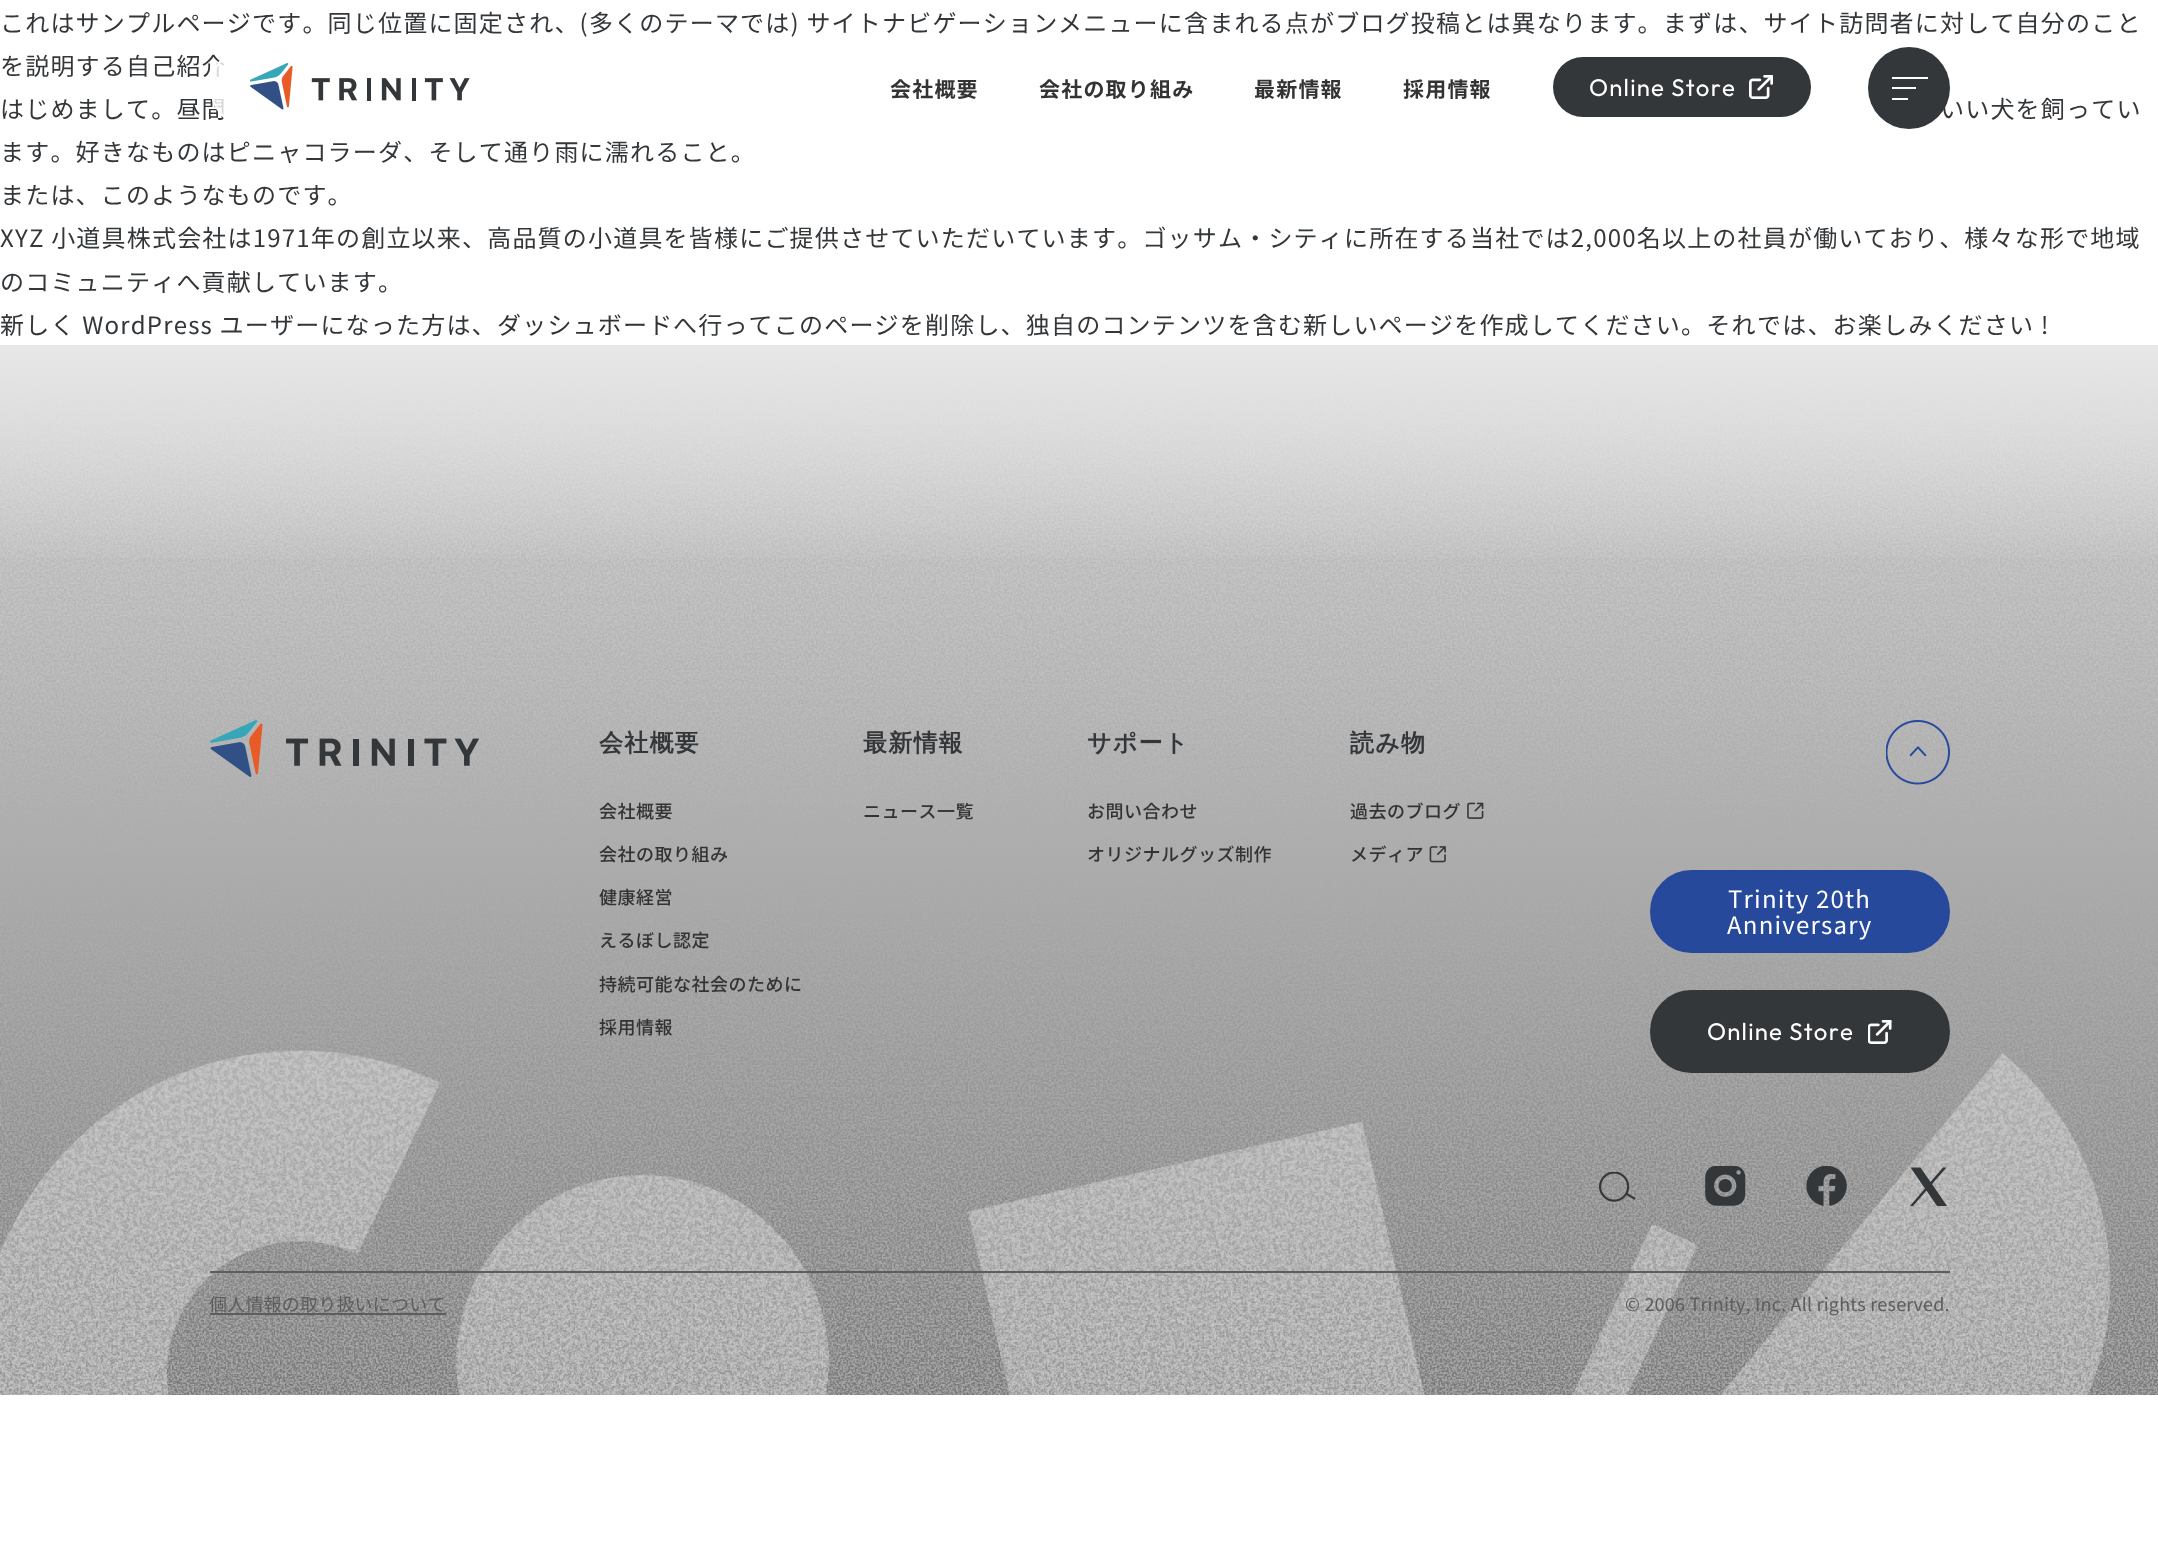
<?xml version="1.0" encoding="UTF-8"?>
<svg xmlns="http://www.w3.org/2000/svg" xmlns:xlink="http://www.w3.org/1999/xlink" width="2158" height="1551">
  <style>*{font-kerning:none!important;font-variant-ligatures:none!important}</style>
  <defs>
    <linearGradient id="g1" gradientUnits="userSpaceOnUse" x1="1079" y1="345" x2="1079" y2="570"><stop offset="0" stop-color="#e7e7e7" /><stop offset="1" stop-color="#e7e7e7" stop-opacity="0" /></linearGradient>
  </defs>
  <rect width="100%" height="100%" fill="#ffffff" />
  <circle cx="1909" cy="88" r="41" fill="#34373a" />
  <rect x="1892" y="77" width="36" height="2" fill="#ffffff" />
  <rect x="1892" y="87" width="24" height="2" fill="#ffffff" />
  <rect x="1892" y="98" width="16" height="2" fill="#ffffff" />
  <rect y="346" width="2158" height="1037" fill="#d9d9d9" />
  <image x="0" y="346" width="2158" height="1049" xlink:href="image3.png" />
  <rect y="345" width="2158" height="213" fill="url(#g1)" />
  <image x="210" y="720" width="269" height="57" xlink:href="image4.png" />
  <image x="1467" y="802" width="17" height="17" xlink:href="image5.png" />
  <image x="1429" y="846" width="17" height="17" xlink:href="image6.png" />
  <image x="1886" y="720" width="64" height="65" xlink:href="image7.png" />
  <rect x="1651" y="871" width="298" height="81" rx="40.5" fill="#26499c" stroke="#26499c" stroke-width="2" />
  <rect x="1651" y="991" width="298" height="81" rx="40.5" fill="#34373a" stroke="#34373a" stroke-width="2" />
  <image x="1868" y="1020" width="24" height="24" xlink:href="image8.png" />
  <image x="1599" y="1172" width="37" height="30" xlink:href="image9.png" />
  <image x="1705" y="1166" width="41" height="40" xlink:href="image10.png" />
  <image x="1806" y="1166" width="41" height="40" xlink:href="image11.png" />
  <path d="M 1910.5 1167.5 l 14.5 21 l -15 17.5 h 3 l 13.5 -15.5 l 10.5 15.5 h 10 l -15 -22 l 14.5 -16.5 h -3.5 l -12.5 14.5 l -10 -14.5 z" fill="#34373a" />
  <rect x="210" y="1271" width="1740" height="2" fill="#5c5d5e" />
  <rect x="210" y="1313" width="236" height="2" fill="#5c5d5e" />
  <text x="0" y="32" style="font-family: Noto Sans JP; font-size: 24px; letter-spacing: 1.2px; fill: #34373a">これはサンプルページです。同じ位置に固定され、(多くのテーマでは) サイトナビゲーション</text>
  <text x="1058" y="32" style="font-family: Noto Sans JP; font-size: 24px; letter-spacing: 1.2px; fill: #34373a">メニューに含まれる点がブログ投稿とは異なります。まずは、サイト訪問者に対して自分のこと</text>
  <text x="0" y="75" style="font-family: Noto Sans JP; font-size: 24px; letter-spacing: 1.2px; fill: #34373a">を説明する自己紹介</text>
  <text x="0" y="118" style="font-family: Noto Sans JP; font-size: 24px; letter-spacing: 1.2px; fill: #34373a">はじめまして。昼間</text>
  <text x="1940" y="118" style="font-family: Noto Sans JP; font-size: 24px; letter-spacing: 1.2px; fill: #34373a">いい犬を飼ってい</text>
  <text x="0" y="161" style="font-family: Noto Sans JP; font-size: 24px; letter-spacing: 1.2px; fill: #34373a">ます。好きなものはピニャコラーダ、そして通り雨に濡れること。</text>
  <text x="0" y="204" style="font-family: Noto Sans JP; font-size: 24px; letter-spacing: 1.2px; fill: #34373a">または、このようなものです。</text>
  <text x="0" y="247" style="font-family: Noto Sans JP; font-size: 24px; letter-spacing: 1.2px; fill: #34373a">XYZ 小道具株式会社は1971年の創立以来、高品質の小道具を皆様にご提供させていただいています。ゴッサ</text>
  <text x="1218" y="247" style="font-family: Noto Sans JP; font-size: 24px; letter-spacing: 1.2px; fill: #34373a">ム・シティに所在する当社では2,000名以上の社員が働いており、様々な形で地域</text>
  <text x="0" y="291" style="font-family: Noto Sans JP; font-size: 24px; letter-spacing: 1.2px; fill: #34373a">のコミュニティへ貢献しています</text>
  <text x="378" y="291" style="font-family: Noto Sans JP; font-size: 24px; letter-spacing: 1.2px; fill: #34373a">。</text>
  <text x="0" y="334" style="font-family: Noto Sans JP; font-size: 24px; letter-spacing: 1.2px; fill: #34373a">新しく WordPress ユーザーになった方は、</text>
  <text x="497" y="334" style="font-family: Noto Sans JP; font-size: 24px; letter-spacing: 1.2px; fill: #333333">ダッシュボード</text>
  <text x="673" y="334" style="font-family: Noto Sans JP; font-size: 24px; letter-spacing: 1.2px; fill: #34373a">へ行ってこのページを削除し、独自のコンテンツを含む新しいページを作成してください。それ</text>
  <text x="1757" y="334" style="font-family: Noto Sans JP; font-size: 24px; letter-spacing: 1.2px; fill: #34373a">では、お楽しみください !</text>
  <rect x="211" y="46" width="1638" height="82" rx="41" fill="#ffffff" fill-opacity="0.8" stroke="#ffffff" stroke-width="2" />
  <image x="250" y="63" width="220" height="47" xlink:href="image1.png" />
  <text x="890" y="97" style="font-family: Noto Sans JP; font-size: 21px; font-weight: bold; letter-spacing: 1.2px; fill: #333333">会社概要</text>
  <text x="1039" y="97" style="font-family: Noto Sans JP; font-size: 21px; font-weight: bold; letter-spacing: 1.2px; fill: #333333">会社の取り組み</text>
  <text x="1254" y="97" style="font-family: Noto Sans JP; font-size: 21px; font-weight: bold; letter-spacing: 1.2px; fill: #333333">最新情報</text>
  <text x="1403" y="97" style="font-family: Noto Sans JP; font-size: 21px; font-weight: bold; letter-spacing: 1.2px; fill: #333333">採用情報</text>
  <rect x="1553" y="57" width="258" height="60" rx="30" fill="#34373a" />
  <image x="1749" y="75" width="24" height="24" xlink:href="image2.png" />
  <text x="1589" y="96" style="font-family: Outfit; font-size: 24px; letter-spacing: 1.2px; fill: #ffffff">Online Store</text>
  <text x="599" y="751" style="font-family: WenQuanYi Zen Hei; font-size: 24px; font-weight: bold; letter-spacing: 1.2px; fill: #34373a">会社概要</text>
  <text x="599" y="818" style="font-family: Noto Sans JP; font-size: 18px; font-weight: 500; letter-spacing: 0.5px; fill: #333333">会社概要</text>
  <text x="599" y="861" style="font-family: Noto Sans JP; font-size: 18px; font-weight: 500; letter-spacing: 0.5px; fill: #333333">会社の取り組み</text>
  <text x="599" y="904" style="font-family: Noto Sans JP; font-size: 18px; font-weight: 500; letter-spacing: 0.5px; fill: #333333">健康経営</text>
  <text x="599" y="947" style="font-family: Noto Sans JP; font-size: 18px; font-weight: 500; letter-spacing: 0.5px; fill: #333333">えるぼし認定</text>
  <text x="599" y="991" style="font-family: Noto Sans JP; font-size: 18px; font-weight: 500; letter-spacing: 0.5px; fill: #333333">持続可能な社会のために</text>
  <text x="599" y="1034" style="font-family: Noto Sans JP; font-size: 18px; font-weight: 500; letter-spacing: 0.5px; fill: #333333">採用情報</text>
  <text x="863" y="751" style="font-family: WenQuanYi Zen Hei; font-size: 24px; font-weight: bold; letter-spacing: 1.2px; fill: #34373a">最新情報</text>
  <text x="863" y="818" style="font-family: Noto Sans JP; font-size: 18px; font-weight: 500; letter-spacing: 0.5px; fill: #333333">ニュース一覧</text>
  <text x="1087" y="751" style="font-family: WenQuanYi Zen Hei; font-size: 24px; font-weight: bold; letter-spacing: 1.2px; fill: #34373a">サポート</text>
  <text x="1087" y="818" style="font-family: Noto Sans JP; font-size: 18px; font-weight: 500; letter-spacing: 0.5px; fill: #333333">お問い合わせ</text>
  <text x="1087" y="861" style="font-family: Noto Sans JP; font-size: 18px; font-weight: 500; letter-spacing: 0.5px; fill: #333333">オリジナルグッズ制作</text>
  <text x="1350" y="751" style="font-family: WenQuanYi Zen Hei; font-size: 24px; font-weight: bold; letter-spacing: 1.2px; fill: #34373a">読み物</text>
  <text x="1350" y="818" style="font-family: Noto Sans JP; font-size: 18px; font-weight: 500; letter-spacing: 0.5px; fill: #333333">過去のブログ</text>
  <text x="1350" y="861" style="font-family: Noto Sans JP; font-size: 18px; font-weight: 500; letter-spacing: 0.5px; fill: #333333">メディア</text>
  <text x="1728" y="908" style="font-family: Noto Sans JP; font-size: 24px; letter-spacing: 1.2px; fill: #ffffff">Trinity 20th</text>
  <text x="1727" y="934" style="font-family: Noto Sans JP; font-size: 24px; letter-spacing: 1.2px; fill: #ffffff">Anniversary</text>
  <text x="1707" y="1040" style="font-family: Outfit; font-size: 24px; letter-spacing: 1.2px; fill: #ffffff">Online Store</text>
  <text x="209" y="1311" style="font-family: Noto Sans JP; font-size: 18px; letter-spacing: 0.2px; fill: #5c5d5e">個人情報の取り扱いについて</text>
  <text x="1625" y="1311" style="font-family: Noto Sans JP; font-size: 18px; letter-spacing: 0.2px; fill: #5c5d5e">© 2006 Trinity, Inc. All rights reserved.</text>
</svg>
